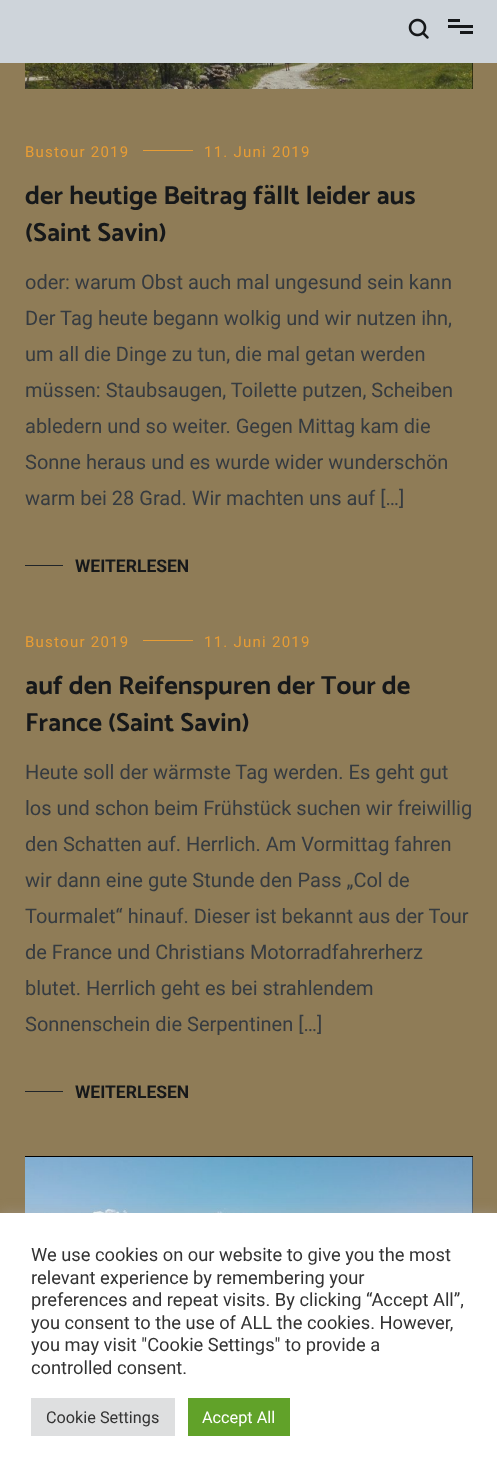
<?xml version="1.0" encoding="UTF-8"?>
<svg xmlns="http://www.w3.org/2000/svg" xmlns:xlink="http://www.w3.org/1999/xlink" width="497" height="1473">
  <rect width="100%" height="100%" fill="#8f7c57" />
  <rect width="497" height="63" fill="#ced4da" />
  <image x="408" y="18" width="21" height="21" xlink:href="image1.png" />
  <rect x="448" y="19" width="12" height="3" fill="#16181a" />
  <rect x="448" y="25" width="25" height="3" fill="#16181a" />
  <rect x="460" y="31" width="13" height="3" fill="#16181a" />
  <rect x="472" y="63" width="1" height="26" fill="#000000" />
  <image x="25" y="63" width="448" height="26" xlink:href="image2.png" />
  <rect x="143" y="150" width="50" height="1" fill="#e89d35" />
  <rect x="25" y="565" width="38" height="1" fill="#212529" />
  <rect x="143" y="640" width="50" height="1" fill="#e89d35" />
  <rect x="25" y="1091" width="38" height="1" fill="#212529" />
  <rect x="25" y="1156" width="448" height="57" fill="#000000" />
  <image x="25" y="1157" width="448" height="56" xlink:href="image3.png" />
  <rect y="1211" width="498" height="262" fill="#acabab" fill-opacity="0.3" filter="blur(6px)" />
  <rect y="1213" width="497" height="260" fill="#ffffff" />
  <rect x="31" y="1398" width="144" height="38" fill="#dedfe0" />
  <rect x="188" y="1398" width="102" height="38" fill="#61a229" />
  <text x="25" y="157" style="font-family: Roboto; font-size: 15px; letter-spacing: 1.25px; fill: #e89d35">Bustour 2019</text>
  <text x="204" y="157" style="font-family: Roboto; font-size: 15px; letter-spacing: 1.25px; fill: #e89d35">11. Juni 2019</text>
  <text x="25" y="204" style="font-family: Catamaran; font-size: 26.25px; font-weight: bold; fill: #16181a">der heutige Beitrag fällt leider aus</text>
  <text x="25" y="241" style="font-family: Catamaran; font-size: 26.25px; font-weight: bold; fill: #16181a">(Saint Savin)</text>
  <text x="25" y="289" style="font-family: Roboto; font-size: 20px; fill: #363b40">oder: warum Obst auch mal ungesund sein kann</text>
  <text x="25" y="325" style="font-family: Roboto; font-size: 20px; fill: #363b40">Der Tag heute begann wolkig und wir nutzen ihn,</text>
  <text x="25" y="361" style="font-family: Roboto; font-size: 20px; fill: #363b40">um all die Dinge zu tun, die mal getan werden</text>
  <text x="25" y="397" style="font-family: Roboto; font-size: 20px; fill: #363b40">müssen: Staubsaugen, Toilette putzen, Scheiben</text>
  <text x="25" y="433" style="font-family: Roboto; font-size: 20px; fill: #363b40">abledern und so weiter. Gegen Mittag kam die</text>
  <text x="25" y="469" style="font-family: Roboto; font-size: 20px; fill: #363b40">Sonne heraus und es wurde wider wunderschön</text>
  <text x="25" y="505" style="font-family: Roboto; font-size: 20px; fill: #363b40">warm bei 28 Grad. Wir machten uns auf […]</text>
  <text x="75" y="572" style="font-family: Roboto; font-size: 17.5px; font-weight: bold; fill: #16181a">WEITERLESEN</text>
  <text x="25" y="647" style="font-family: Roboto; font-size: 15px; letter-spacing: 1.25px; fill: #e89d35">Bustour 2019</text>
  <text x="204" y="647" style="font-family: Roboto; font-size: 15px; letter-spacing: 1.25px; fill: #e89d35">11. Juni 2019</text>
  <text x="25" y="694" style="font-family: Catamaran; font-size: 26.25px; font-weight: bold; fill: #16181a">auf den Reifenspuren der Tour de</text>
  <text x="25" y="731" style="font-family: Catamaran; font-size: 26.25px; font-weight: bold; fill: #16181a">France (Saint Savin)</text>
  <text x="25" y="779" style="font-family: Roboto; font-size: 20px; fill: #363b40">Heute soll der wärmste Tag werden. Es geht gut</text>
  <text x="25" y="815" style="font-family: Roboto; font-size: 20px; fill: #363b40">los und schon beim Frühstück suchen wir freiwillig</text>
  <text x="25" y="851" style="font-family: Roboto; font-size: 20px; fill: #363b40">den Schatten auf. Herrlich. Am Vormittag fahren</text>
  <text x="25" y="887" style="font-family: Roboto; font-size: 20px; fill: #363b40">wir dann eine gute Stunde den Pass „Col de</text>
  <text x="25" y="923" style="font-family: Roboto; font-size: 20px; fill: #363b40">Tourmalet“ hinauf. Dieser ist bekannt aus der Tour</text>
  <text x="25" y="959" style="font-family: Roboto; font-size: 20px; fill: #363b40">de France und Christians Motorradfahrerherz</text>
  <text x="25" y="995" style="font-family: Roboto; font-size: 20px; fill: #363b40">blutet. Herrlich geht es bei strahlendem</text>
  <text x="25" y="1031" style="font-family: Roboto; font-size: 20px; fill: #363b40">Sonnenschein die Serpentinen […]</text>
  <text x="75" y="1098" style="font-family: Roboto; font-size: 17.5px; font-weight: bold; fill: #16181a">WEITERLESEN</text>
  <text x="31" y="1261" style="font-family: Roboto; font-size: 18.3px; fill: #333333">We use cookies on our website to give you the most</text>
  <text x="31" y="1284" style="font-family: Roboto; font-size: 18.3px; fill: #333333">relevant experience by remembering your</text>
  <text x="31" y="1306" style="font-family: Roboto; font-size: 18.3px; fill: #333333">preferences and repeat visits. By clicking “Accept All”,</text>
  <text x="31" y="1329" style="font-family: Roboto; font-size: 18.3px; fill: #333333">you consent to the use of ALL the cookies. However,</text>
  <text x="31" y="1351" style="font-family: Roboto; font-size: 18.3px; fill: #333333">you may visit "Cookie Settings" to provide a</text>
  <text x="31" y="1374" style="font-family: Roboto; font-size: 18.3px; fill: #333333">controlled consent.</text>
  <text x="46" y="1423" style="font-family: Roboto; font-size: 16.25px; fill: #333333">Cookie Settings</text>
  <text x="202" y="1423" style="font-family: Roboto; font-size: 16.25px; fill: #ffffff">Accept All</text>
</svg>
